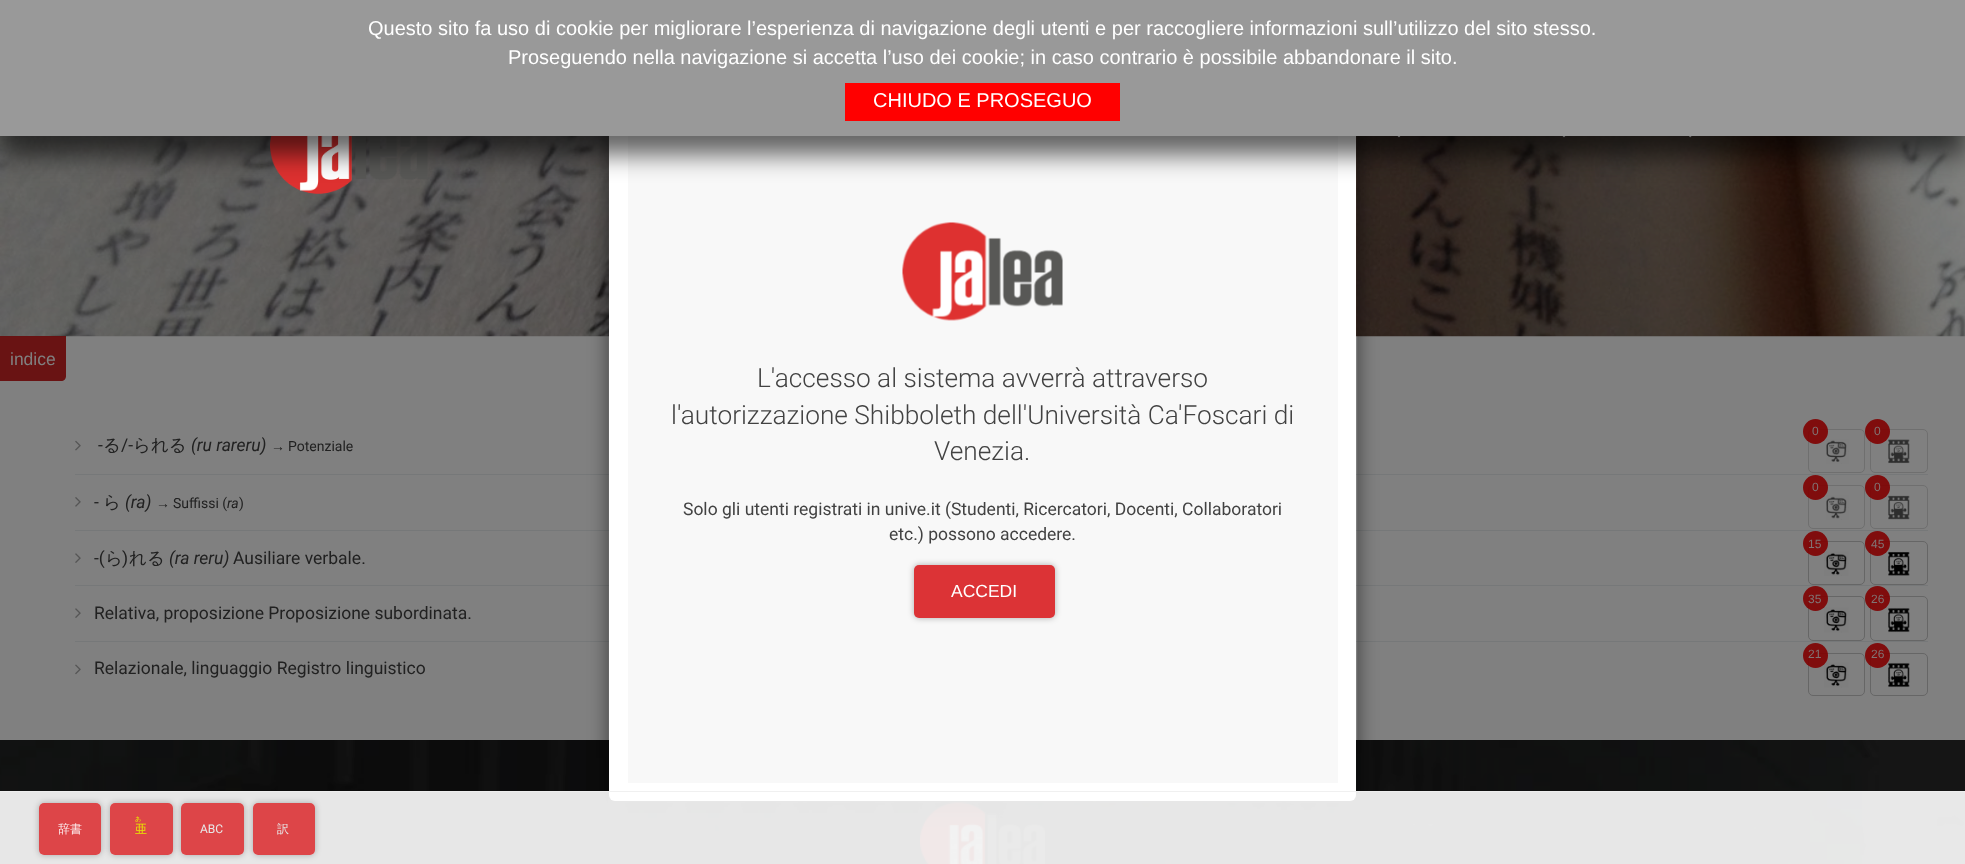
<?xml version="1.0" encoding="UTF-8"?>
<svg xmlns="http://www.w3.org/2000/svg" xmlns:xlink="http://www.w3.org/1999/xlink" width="1965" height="864">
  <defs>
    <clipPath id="clip1"><path d="M 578 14 h 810 v 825 h -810 z m 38 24 h 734 c 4.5 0 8 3.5 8 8 v 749 c 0 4.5 -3.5 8 -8 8 h -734 c -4.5 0 -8 -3.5 -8 -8 v -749 c 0 -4.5 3.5 -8 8 -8 z" clip-rule="evenodd" /></clipPath>
    <clipPath id="clip2"><path d="M 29 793 h 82 v 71 h -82 z m 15 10 h 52 c 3 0 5 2 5 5 v 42 c 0 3 -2 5 -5 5 h -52 c -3 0 -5 -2 -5 -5 v -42 c 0 -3 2 -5 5 -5 z" clip-rule="evenodd" /></clipPath>
    <clipPath id="clip3"><path d="M 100 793 h 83 v 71 h -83 z m 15 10 h 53 c 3 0 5 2 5 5 v 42 c 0 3 -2 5 -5 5 h -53 c -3 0 -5 -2 -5 -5 v -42 c 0 -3 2 -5 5 -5 z" clip-rule="evenodd" /></clipPath>
    <clipPath id="clip4"><path d="M 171 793 h 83 v 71 h -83 z m 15 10 h 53 c 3 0 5 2 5 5 v 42 c 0 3 -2 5 -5 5 h -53 c -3 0 -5 -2 -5 -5 v -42 c 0 -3 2 -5 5 -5 z" clip-rule="evenodd" /></clipPath>
    <clipPath id="clip5"><path d="M 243 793 h 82 v 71 h -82 z m 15 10 h 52 c 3 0 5 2 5 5 v 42 c 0 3 -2 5 -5 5 h -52 c -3 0 -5 -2 -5 -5 v -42 c 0 -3 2 -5 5 -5 z" clip-rule="evenodd" /></clipPath>
  </defs>
  <rect width="100%" height="100%" fill="#808080" />
  <image x="0" y="136" width="1965" height="201" xlink:href="image5.png" />
  <image x="270" y="136" width="158" height="58" xlink:href="image1.png" />
  <image x="1397" y="136" width="4" height="2" xlink:href="image2.png" />
  <image x="1562" y="136" width="4" height="2" xlink:href="image3.png" />
  <image x="1689" y="136" width="3" height="2" xlink:href="image4.png" />
  <rect x="75" y="474" width="1853" height="1" fill="#767879" />
  <rect x="75" y="530" width="1853" height="1" fill="#767879" />
  <rect x="75" y="585" width="1853" height="1" fill="#767879" />
  <rect x="75" y="641" width="1853" height="1" fill="#767879" />
  <image x="0" y="740" width="1965" height="124" xlink:href="image18.png" />
  <image x="920" y="802" width="125" height="62" xlink:href="image19.png" />
  <g clip-path="url(#clip1)">
    <rect x="608" y="44" width="750" height="765" rx="8" fill="#000000" fill-opacity="0.5" filter="blur(9.5px)" />
  </g>
  <rect x="609" y="39" width="747" height="762" rx="6" fill="#ffffff" />
  <rect x="608.5" y="38.5" width="749" height="764" rx="7.5" fill="none" stroke="#000000" stroke-opacity="0.2" />
  <rect x="628" y="136" width="710" height="647" fill="#f8f8f8" />
  <rect y="19" width="1965" height="136" fill="#000000" fill-opacity="0.6" filter="blur(12.5px)" />
  <rect width="1965" height="136" fill="#999999" />
  <rect x="845" y="83" width="275" height="38" fill="#ff0000" />
  <path d="M 0 336 h 66 v 40 c 0 3 -2 5 -5 5 h -61 z" fill="#660707" fill-opacity="0.9" />
  <rect x="1808.5" y="429.5" width="56" height="43" rx="4.5" fill="none" stroke="#6f6f6f" />
  <image x="1826" y="439" width="23" height="25" xlink:href="image6.png" />
  <circle cx="1815.5" cy="431.5" r="12.5" fill="#800000" fill-opacity="0.9" />
  <rect x="1870.5" y="429.5" width="57" height="43" rx="4.5" fill="none" stroke="#6f6f6f" />
  <image x="1888" y="439" width="22" height="25" xlink:href="image7.png" />
  <circle cx="1877.5" cy="431.5" r="12.5" fill="#800000" fill-opacity="0.9" />
  <image x="75" y="440" width="6" height="11" xlink:href="image8.png" />
  <rect x="1808.5" y="485.5" width="56" height="43" rx="4.5" fill="none" stroke="#6f6f6f" />
  <image x="1826" y="495" width="23" height="25" xlink:href="image9.png" />
  <circle cx="1815.5" cy="487.5" r="12.5" fill="#800000" fill-opacity="0.9" />
  <rect x="1870.5" y="485.5" width="57" height="43" rx="4.5" fill="none" stroke="#6f6f6f" />
  <image x="1888" y="495" width="22" height="25" xlink:href="image10.png" />
  <circle cx="1877.5" cy="487.5" r="12.5" fill="#800000" fill-opacity="0.9" />
  <image x="75" y="497" width="6" height="10" xlink:href="image11.png" />
  <rect x="1808.5" y="541.5" width="56" height="43" rx="4.5" fill="none" stroke="#666666" />
  <image x="1824" y="551" width="25" height="25" xlink:href="image12.png" />
  <circle cx="1815.5" cy="543.5" r="12.5" fill="#800000" fill-opacity="0.9" />
  <rect x="1870.5" y="541.5" width="57" height="43" rx="4.5" fill="none" stroke="#666666" />
  <image x="1888" y="551" width="22" height="25" xlink:href="image13.png" />
  <circle cx="1877.5" cy="543.5" r="12.5" fill="#800000" fill-opacity="0.9" />
  <image x="75" y="553" width="6" height="10" xlink:href="image14.png" />
  <rect x="1808.5" y="596.5" width="56" height="44" rx="4.5" fill="none" stroke="#666666" />
  <image x="1824" y="607" width="25" height="26" xlink:href="image15.png" />
  <circle cx="1815.5" cy="598.5" r="12.5" fill="#800000" fill-opacity="0.9" />
  <rect x="1870.5" y="596.5" width="57" height="44" rx="4.5" fill="none" stroke="#666666" />
  <image x="1888" y="607" width="22" height="26" xlink:href="image16.png" />
  <circle cx="1877.5" cy="598.5" r="12.5" fill="#800000" fill-opacity="0.9" />
  <image x="75" y="608" width="6" height="10" xlink:href="image14.png" />
  <rect x="1808.5" y="653.5" width="56" height="42" rx="4.5" fill="none" stroke="#666666" />
  <image x="1824" y="662" width="25" height="26" xlink:href="image15.png" />
  <circle cx="1815.5" cy="655.5" r="12.5" fill="#800000" fill-opacity="0.9" />
  <rect x="1870.5" y="653.5" width="57" height="42" rx="4.5" fill="none" stroke="#666666" />
  <image x="1888" y="662" width="22" height="26" xlink:href="image16.png" />
  <circle cx="1877.5" cy="655.5" r="12.5" fill="#800000" fill-opacity="0.9" />
  <image x="75" y="664" width="6" height="11" xlink:href="image17.png" />
  <rect y="791" width="1965" height="73" fill="#ffffff" fill-opacity="0.9" />
  <rect y="791" width="1965" height="1" fill="#eeeeee" fill-opacity="0.9" />
  <g clip-path="url(#clip2)">
    <rect x="39" y="803" width="62" height="52" rx="5" fill="#000000" fill-opacity="0.27" filter="blur(3px)" />
  </g>
  <rect x="39" y="803" width="62" height="52" rx="5" fill="#dc3336" fill-opacity="0.9" />
  <g clip-path="url(#clip3)">
    <rect x="110" y="803" width="63" height="52" rx="5" fill="#000000" fill-opacity="0.27" filter="blur(3px)" />
  </g>
  <rect x="110" y="803" width="63" height="52" rx="5" fill="#dc3336" fill-opacity="0.9" />
  <g clip-path="url(#clip4)">
    <rect x="181" y="803" width="63" height="52" rx="5" fill="#000000" fill-opacity="0.27" filter="blur(3px)" />
  </g>
  <rect x="181" y="803" width="63" height="52" rx="5" fill="#dc3336" fill-opacity="0.9" />
  <g clip-path="url(#clip5)">
    <rect x="253" y="803" width="62" height="52" rx="5" fill="#000000" fill-opacity="0.27" filter="blur(3px)" />
  </g>
  <rect x="253" y="803" width="62" height="52" rx="5" fill="#dc3336" fill-opacity="0.9" />
  <image x="902" y="222" width="161" height="99" xlink:href="image20.png" />
  <rect x="914" y="565" width="141" height="53" rx="5" fill="#000000" fill-opacity="0.3" filter="blur(3px)" />
  <rect x="914" y="565" width="141" height="53" rx="5" fill="#dc3336" />
  <text x="368" y="35" style="font-family: Liberation Sans; font-size: 20px; fill: #ffffff">Questo sito fa uso di cookie per migliorare l’esperienza di navigazione degli utenti e per raccogliere informazioni sull’utilizzo del sito stesso.</text>
  <text x="508" y="64" style="font-family: Liberation Sans; font-size: 20px; fill: #ffffff">Proseguendo nella navigazione si accetta l’uso dei cookie; in caso contrario è possibile abbandonare il sito.</text>
  <text x="873" y="107" style="font-family: Liberation Sans; font-size: 20px; fill: #ffffff">CHIUDO E PROSEGUO</text>
  <text x="10" y="365" style="font-family: Liberation Sans; font-size: 17.5px; fill: #808080">indice</text>
  <text x="1812" y="435" style="font-family: Liberation Sans; font-size: 12px; fill: #807474">0</text>
  <text x="1874" y="435" style="font-family: Liberation Sans; font-size: 12px; fill: #807474">0</text>
  <text x="98" y="451" style="font-family: Roboto; font-size: 17.5px; fill: #212121">-</text>
  <text x="103" y="451" style="font-family: WenQuanYi Zen Hei; font-size: 17.5px; font-weight: 500; fill: #212121">る</text>
  <text x="121" y="451" style="font-family: Roboto; font-size: 17.5px; fill: #212121">/-</text>
  <text x="133" y="451" style="font-family: WenQuanYi Zen Hei; font-size: 17.5px; font-weight: 500; fill: #212121">られる</text>
  <text x="191" y="451" style="font-family: Roboto; font-size: 17.5px; font-style: italic; fill: #212121">(ru rareru)</text>
  <text x="288" y="451" style="font-family: Roboto; font-size: 14px; fill: #212121">Potenziale</text>
  <text x="271" y="451" style="font-family: Liberation Sans; font-size: 14px; fill: #212121">→</text>
  <text x="1812" y="491" style="font-family: Liberation Sans; font-size: 12px; fill: #807474">0</text>
  <text x="1874" y="491" style="font-family: Liberation Sans; font-size: 12px; fill: #807474">0</text>
  <text x="94" y="508" style="font-family: Roboto; font-size: 17.5px; fill: #212121">-</text>
  <text x="103" y="508" style="font-family: WenQuanYi Zen Hei; font-size: 17.5px; font-weight: 500; fill: #212121">ら</text>
  <text x="125" y="508" style="font-family: Roboto; font-size: 17.5px; font-style: italic; fill: #212121">(ra)</text>
  <text x="173" y="508" style="font-family: Roboto; font-size: 14px; fill: #212121">Suffissi (</text>
  <text x="227" y="508" style="font-family: Roboto; font-size: 14px; font-style: italic; fill: #212121">ra</text>
  <text x="239" y="508" style="font-family: Roboto; font-size: 14px; fill: #212121">)</text>
  <text x="156" y="508" style="font-family: Liberation Sans; font-size: 14px; fill: #212121">→</text>
  <text x="1808" y="548" style="font-family: Liberation Sans; font-size: 12px; fill: #807474">15</text>
  <text x="1871" y="548" style="font-family: Liberation Sans; font-size: 12px; fill: #807474">45</text>
  <text x="94" y="564" style="font-family: Roboto; font-size: 17.5px; fill: #212121">-(</text>
  <text x="105" y="564" style="font-family: WenQuanYi Zen Hei; font-size: 17.5px; font-weight: 500; fill: #212121">ら</text>
  <text x="122" y="564" style="font-family: Roboto; font-size: 17.5px; fill: #212121">)</text>
  <text x="129" y="564" style="font-family: WenQuanYi Zen Hei; font-size: 17.5px; font-weight: 500; fill: #212121">れる</text>
  <text x="169" y="564" style="font-family: Roboto; font-size: 17.5px; font-style: italic; fill: #212121">(ra reru)</text>
  <text x="233" y="564" style="font-family: Roboto; font-size: 17.5px; fill: #212121">Ausiliare verbale.</text>
  <text x="1808" y="603" style="font-family: Liberation Sans; font-size: 12px; fill: #807474">35</text>
  <text x="1871" y="603" style="font-family: Liberation Sans; font-size: 12px; fill: #807474">26</text>
  <text x="94" y="619" style="font-family: Roboto; font-size: 17.5px; fill: #212121">Relativa, proposizione Proposizione subordinata.</text>
  <text x="1808" y="658" style="font-family: Liberation Sans; font-size: 12px; fill: #807474">21</text>
  <text x="1871" y="658" style="font-family: Liberation Sans; font-size: 12px; fill: #807474">26</text>
  <text x="94" y="674" style="font-family: Roboto; font-size: 17.5px; fill: #212121">Relazionale, linguaggio Registro linguistico</text>
  <text x="58" y="833" style="font-family: WenQuanYi Zen Hei; font-size: 12px; font-weight: 500; fill: #fceced">辞書</text>
  <text x="135" y="821" style="font-family: WenQuanYi Zen Hei; font-size: 6px; font-weight: 500; fill: #e7e701">あ</text>
  <text x="135" y="833" style="font-family: WenQuanYi Zen Hei; font-size: 12px; font-weight: 500; fill: #e7e701">亜</text>
  <text x="200" y="833" style="font-family: Roboto; font-size: 12px; fill: #e7e7e7">ABC</text>
  <text x="277" y="833" style="font-family: WenQuanYi Zen Hei; font-size: 12px; font-weight: 500; fill: #e7e7e7">訳</text>
  <text x="757" y="387" style="font-family: Roboto; font-size: 26.25px; font-weight: 300; fill: #424242">L'accesso al sistema avverrà attraverso</text>
  <text x="671" y="424" style="font-family: Roboto; font-size: 26.25px; font-weight: 300; fill: #424242">l'autorizzazione Shibboleth dell'Università Ca'Foscari di</text>
  <text x="934" y="460" style="font-family: Roboto; font-size: 26.25px; font-weight: 300; fill: #424242">Venezia.</text>
  <text x="683" y="515" style="font-family: Roboto; font-size: 17.5px; fill: #424242">Solo gli utenti registrati in unive.it (Studenti, Ricercatori, Docenti, Collaboratori</text>
  <text x="889" y="540" style="font-family: Roboto; font-size: 17.5px; fill: #424242">etc.) possono accedere.</text>
  <text x="951" y="597" style="font-family: Liberation Sans; font-size: 17.5px; fill: #ffffff">ACCEDI</text>
</svg>
